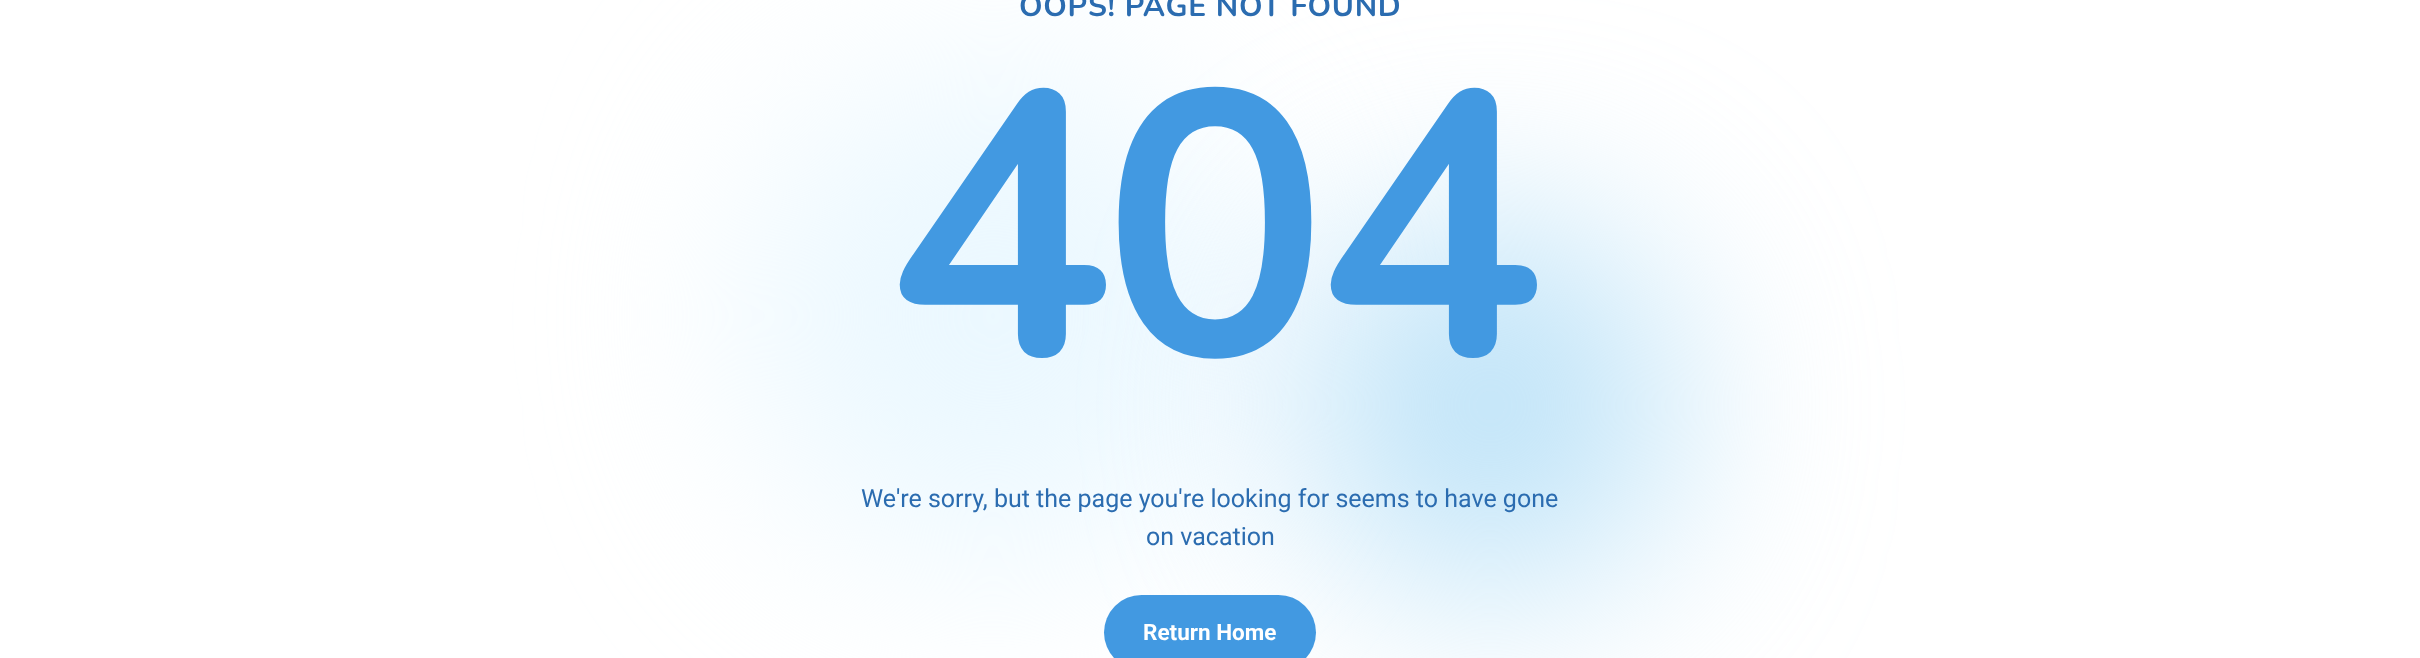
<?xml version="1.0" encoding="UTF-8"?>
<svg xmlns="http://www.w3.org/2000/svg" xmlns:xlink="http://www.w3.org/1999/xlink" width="2420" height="658">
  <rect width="100%" height="100%" fill="#ffffff" />
  <rect x="743" y="66" width="500" height="500" rx="250" fill="#ebf8ff" filter="blur(100px)" />
  <rect x="1303" y="218" width="375" height="375" rx="187.5" fill="#bee3f8" filter="blur(100px)" />
  <rect x="1104" y="595" width="212" height="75" rx="37.5" fill="#4299e1" />
  <text x="1019" y="16" style="font-family: Nunito; font-size: 30px; font-weight: bold; letter-spacing: 0.75px; fill: #2b6cb0">OOPS! PAGE NOT FOUND</text>
  <text x="887" y="355" style="font-family: Nunito; font-size: 375px; font-weight: bold; letter-spacing: -9.5px; fill: #4299e1">404</text>
  <text x="861" y="507" style="font-family: Roboto; font-size: 25px; fill: #2b6cb0">We're sorry, but the page you're looking for seems to have gone</text>
  <text x="1146" y="545" style="font-family: Roboto; font-size: 25px; fill: #2b6cb0">on vacation</text>
  <text x="1143" y="640" style="font-family: Roboto; font-size: 22.5px; font-weight: bold; fill: #ffffff">Return Home</text>
</svg>
